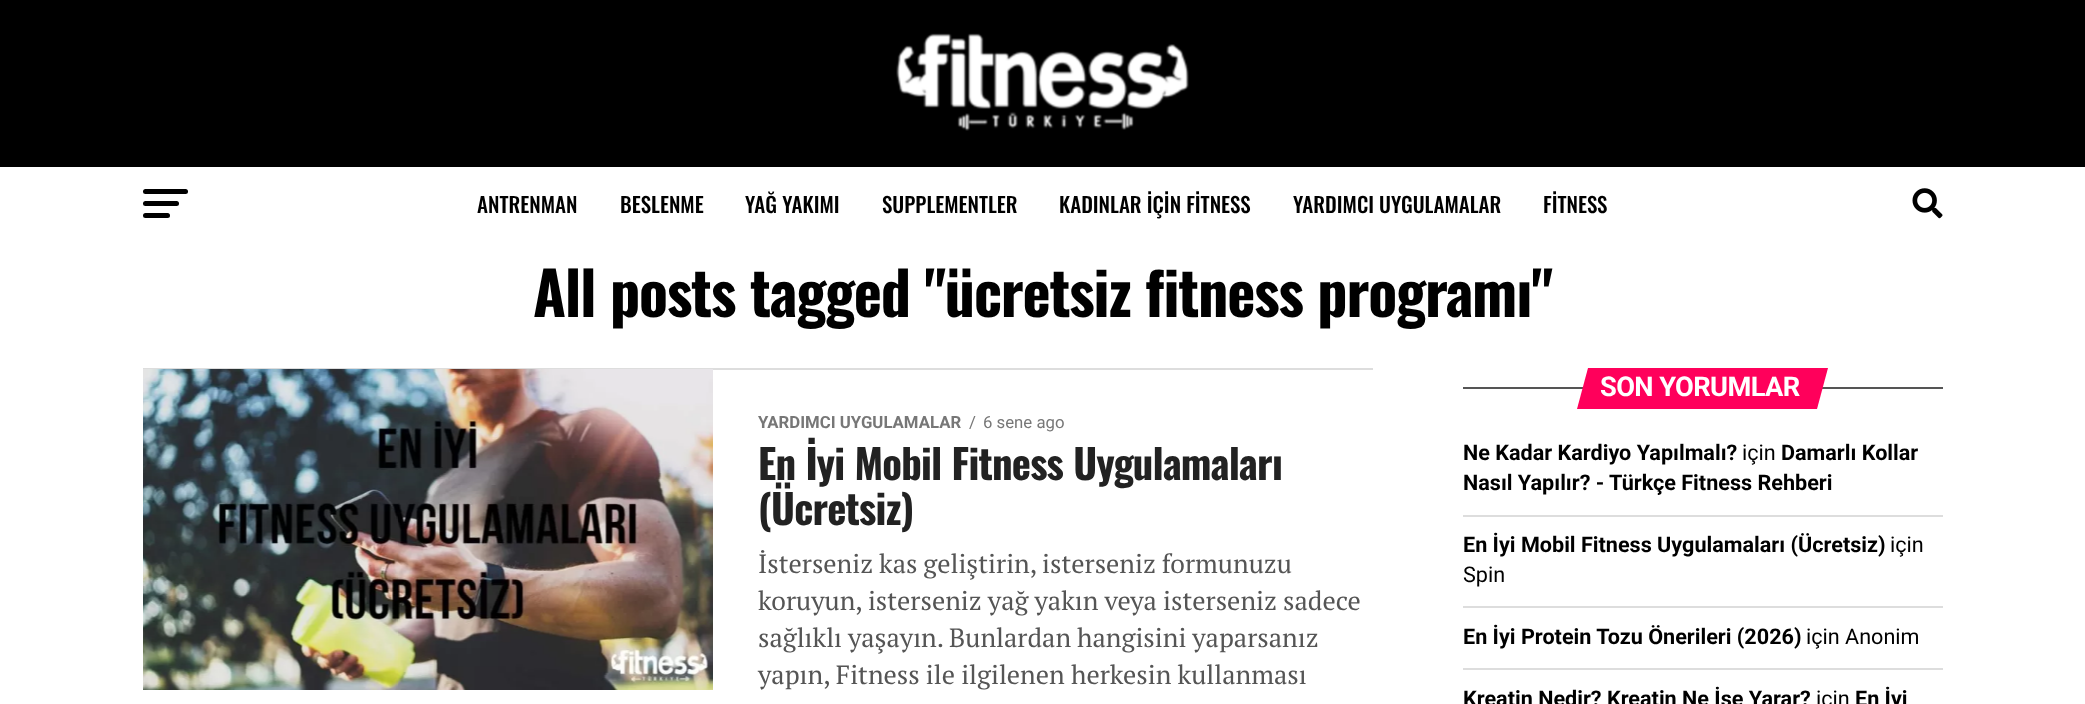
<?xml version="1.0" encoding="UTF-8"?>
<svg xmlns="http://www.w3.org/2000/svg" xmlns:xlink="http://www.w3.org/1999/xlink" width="2085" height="704">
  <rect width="100%" height="100%" fill="#ffffff" />
  <rect width="2085" height="167" fill="#000000" />
  <image x="896" y="33" width="293" height="98" xlink:href="image1.png" />
  <rect x="143" y="189" width="45" height="5" rx="2.5" fill="#000000" />
  <rect x="143" y="201" width="36" height="5" rx="2.5" fill="#000000" />
  <rect x="143" y="213" width="27" height="5" rx="2.5" fill="#000000" />
  <image x="1912" y="188" width="31" height="31" xlink:href="image2.png" />
  <rect x="143" y="368" width="1230" height="2" fill="#dddddd" />
  <image x="143" y="369" width="570" height="321" xlink:href="image3.png" />
  <rect x="1463" y="387" width="480" height="2" fill="#555555" />
  <path d="M 1588 368 h 240 l -11 41 h -240 z" fill="#ff005b" />
  <rect x="1463" y="515" width="480" height="2" fill="#dddddd" />
  <rect x="1463" y="606" width="480" height="2" fill="#dddddd" />
  <rect x="1463" y="668" width="480" height="2" fill="#dddddd" />
  <text x="477" y="213" style="font-family: Oswald; font-size: 21px; font-weight: 500; fill: #000000">ANTRENMAN</text>
  <text x="620" y="213" style="font-family: Oswald; font-size: 21px; font-weight: 500; fill: #000000">BESLENME</text>
  <text x="745" y="213" style="font-family: Oswald; font-size: 21px; font-weight: 500; fill: #000000">YAĞ YAKIMI</text>
  <text x="882" y="213" style="font-family: Oswald; font-size: 21px; font-weight: 500; fill: #000000">SUPPLEMENTLER</text>
  <text x="1059" y="213" style="font-family: Oswald; font-size: 21px; font-weight: 500; fill: #000000">KADINLAR İÇİN FİTNESS</text>
  <text x="1293" y="213" style="font-family: Oswald; font-size: 21px; font-weight: 500; fill: #000000">YARDIMCI UYGULAMALAR</text>
  <text x="1543" y="213" style="font-family: Oswald; font-size: 21px; font-weight: 500; fill: #000000">FİTNESS</text>
  <text x="533" y="317" word-spacing="0.5" style="font-family: Oswald; font-size: 60px; font-weight: bold; letter-spacing: -1.2px; fill: #000000">All posts tagged "ücretsiz fitness programı"</text>
  <text x="758" y="428" style="font-family: Roboto; font-size: 16.75px; font-weight: bold; fill: #777777">YARDIMCI UYGULAMALAR</text>
  <text x="969" y="428" style="font-family: Roboto; font-size: 16.75px; fill: #777777">/</text>
  <text x="983" y="428" style="font-family: Roboto; font-size: 16.75px; fill: #777777">6 sene ago</text>
  <text x="758" y="480" word-spacing="0.5" style="font-family: Oswald; font-size: 40.75px; font-weight: bold; letter-spacing: -0.8px; fill: #222222">En İyi Mobil Fitness Uygulamaları</text>
  <text x="758" y="525" style="font-family: Oswald; font-size: 40.75px; font-weight: bold; letter-spacing: -0.8px; fill: #222222">(Ücretsiz)</text>
  <text x="758" y="573" word-spacing="-0.5" style="font-family: PT Serif; font-size: 26.4px; fill: #555555">İsterseniz kas geliştirin, isterseniz formunuzu</text>
  <text x="758" y="610" word-spacing="-0.25" style="font-family: PT Serif; font-size: 26.4px; fill: #555555">koruyun, isterseniz yağ yakın veya isterseniz sadece</text>
  <text x="758" y="647" word-spacing="-0.5" style="font-family: PT Serif; font-size: 26.4px; fill: #555555">sağlıklı yaşayın. Bunlardan hangisini yaparsanız</text>
  <text x="758" y="684" word-spacing="-0.25" style="font-family: PT Serif; font-size: 26.4px; fill: #555555">yapın, Fitness ile ilgilenen herkesin kullanması</text>
  <text x="1600" y="396" style="font-family: Roboto; font-size: 27.25px; font-weight: bold; letter-spacing: -0.6px; fill: #ffffff">SON YORUMLAR</text>
  <text x="1463" y="460" style="font-family: Roboto; font-size: 21.6px; font-weight: bold; fill: #000000">Ne Kadar Kardiyo Yapılmalı?</text>
  <text x="1742" y="460" style="font-family: Roboto; font-size: 21.6px; fill: #000000">için</text>
  <text x="1781" y="460" style="font-family: Roboto; font-size: 21.6px; font-weight: bold; fill: #000000">Damarlı Kollar</text>
  <text x="1463" y="490" style="font-family: Roboto; font-size: 21.6px; font-weight: bold; fill: #000000">Nasıl Yapılır? - Türkçe Fitness Rehberi</text>
  <text x="1463" y="552" style="font-family: Roboto; font-size: 21.6px; font-weight: bold; fill: #000000">En İyi Mobil Fitness Uygulamaları (Ücretsiz)</text>
  <text x="1890" y="552" style="font-family: Roboto; font-size: 21.6px; fill: #000000">için</text>
  <text x="1463" y="582" style="font-family: Roboto; font-size: 21.6px; fill: #000000">Spin</text>
  <text x="1463" y="644" style="font-family: Roboto; font-size: 21.6px; font-weight: bold; fill: #000000">En İyi Protein Tozu Önerileri (2026)</text>
  <text x="1806" y="644" style="font-family: Roboto; font-size: 21.6px; fill: #000000">için Anonim</text>
  <text x="1463" y="706" style="font-family: Roboto; font-size: 21.6px; font-weight: bold; fill: #000000">Kreatin Nedir? Kreatin Ne İşe Yarar?</text>
  <text x="1816" y="706" style="font-family: Roboto; font-size: 21.6px; fill: #000000">için</text>
  <text x="1855" y="706" style="font-family: Roboto; font-size: 21.6px; font-weight: bold; fill: #000000">En İyi</text>
</svg>
